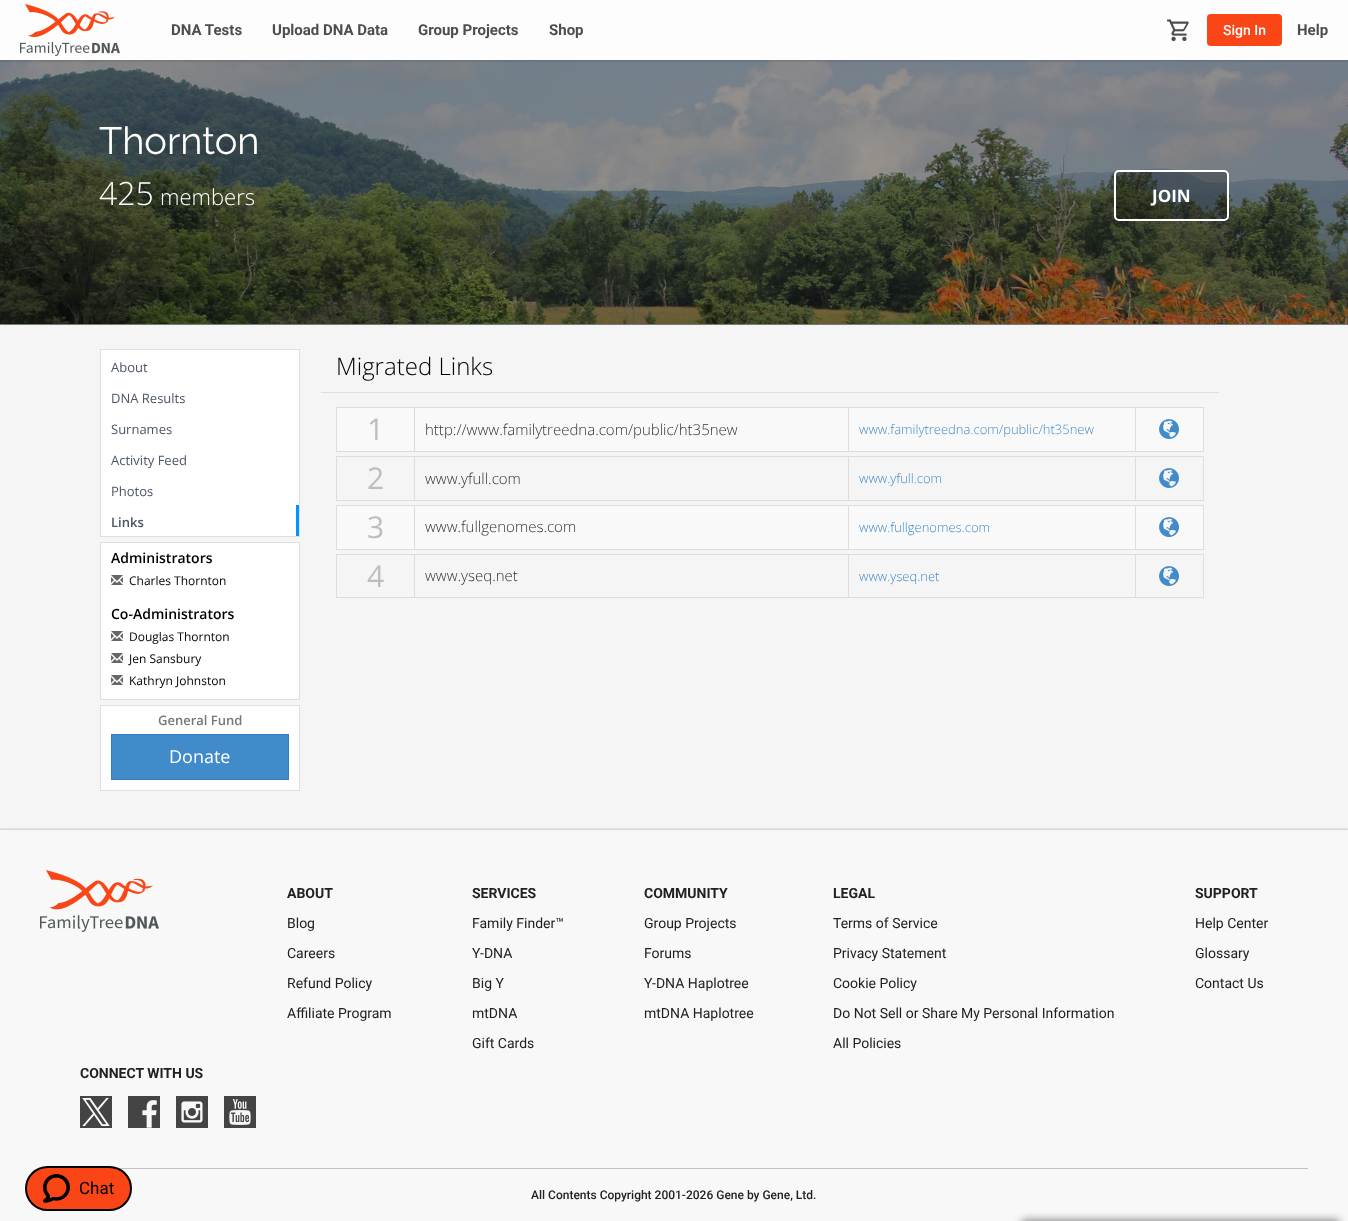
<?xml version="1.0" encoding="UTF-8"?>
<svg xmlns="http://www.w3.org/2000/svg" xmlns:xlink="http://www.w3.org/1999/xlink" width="1348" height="1221">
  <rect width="100%" height="100%" fill="#f5f5f5" />
  <image x="0" y="60" width="1348" height="264" xlink:href="image3.png" />
  <rect y="1" width="1348" height="60" fill="#212121" fill-opacity="0.21" filter="blur(1px)" />
  <rect width="1348" height="60" fill="#fdfdfd" />
  <image x="20" y="4" width="100" height="52" xlink:href="image1.png" />
  <image x="1167" y="19" width="22" height="22" xlink:href="image2.png" />
  <rect x="1207" y="14" width="75" height="32" rx="4" fill="#fa4616" />
  <rect y="324" width="1348" height="1" fill="#797979" />
  <rect x="1115" y="171" width="113" height="49" rx="4" fill="#000000" fill-opacity="0.25" stroke="#ffffff" stroke-width="2" />
  <rect x="100.5" y="349.5" width="199" height="187" fill="#ffffff" stroke="#dfdfdf" />
  <rect x="296" y="505" width="3" height="31" fill="#0096ff" />
  <rect x="100.5" y="542.5" width="199" height="157" fill="#ffffff" stroke="#dfdfdf" />
  <image x="111" y="575" width="12" height="10" xlink:href="image4.png" />
  <image x="111" y="631" width="12" height="10" xlink:href="image4.png" />
  <image x="111" y="653" width="12" height="10" xlink:href="image4.png" />
  <image x="111" y="675" width="12" height="10" xlink:href="image4.png" />
  <rect x="100.5" y="705.5" width="199" height="85" fill="#ffffff" stroke="#dfdfdf" />
  <rect x="111.5" y="734.5" width="177" height="45" fill="#428bca" stroke="#357ebd" />
  <rect x="321" y="392" width="898" height="1" fill="#dfdfdf" />
  <rect x="337" y="408" width="77" height="43" fill="#f9f9f9" />
  <rect x="336" y="407" width="868" height="1" fill="#dddddd" />
  <rect x="336" y="451" width="799" height="1" fill="#dddddd" />
  <rect x="336" y="407" width="1" height="45" fill="#dddddd" />
  <rect x="415" y="408" width="433" height="43" fill="#f9f9f9" />
  <rect x="414" y="407" width="1" height="45" fill="#dddddd" />
  <rect x="849" y="408" width="286" height="43" fill="#f9f9f9" />
  <rect x="848" y="407" width="1" height="45" fill="#dddddd" />
  <rect x="1136" y="408" width="67" height="43" fill="#f9f9f9" />
  <rect x="1203" y="407" width="1" height="45" fill="#dfdfdf" />
  <rect x="1135" y="451" width="69" height="1" fill="#dddddd" />
  <rect x="1135" y="407" width="1" height="45" fill="#dddddd" />
  <image x="1159" y="419" width="20" height="20" xlink:href="image5.png" />
  <rect x="336" y="456" width="868" height="1" fill="#dddddd" />
  <rect x="336" y="500" width="799" height="1" fill="#dddddd" />
  <rect x="336" y="456" width="1" height="45" fill="#dddddd" />
  <rect x="414" y="456" width="1" height="45" fill="#dddddd" />
  <rect x="848" y="456" width="1" height="45" fill="#dddddd" />
  <rect x="1203" y="456" width="1" height="45" fill="#dfdfdf" />
  <rect x="1135" y="500" width="69" height="1" fill="#dddddd" />
  <rect x="1135" y="456" width="1" height="45" fill="#dddddd" />
  <image x="1159" y="468" width="20" height="20" xlink:href="image6.png" />
  <rect x="337" y="506" width="77" height="43" fill="#f9f9f9" />
  <rect x="336" y="505" width="868" height="1" fill="#dddddd" />
  <rect x="336" y="549" width="799" height="1" fill="#dddddd" />
  <rect x="336" y="505" width="1" height="45" fill="#dddddd" />
  <rect x="415" y="506" width="433" height="43" fill="#f9f9f9" />
  <rect x="414" y="505" width="1" height="45" fill="#dddddd" />
  <rect x="849" y="506" width="286" height="43" fill="#f9f9f9" />
  <rect x="848" y="505" width="1" height="45" fill="#dddddd" />
  <rect x="1136" y="506" width="67" height="43" fill="#f9f9f9" />
  <rect x="1203" y="505" width="1" height="45" fill="#dfdfdf" />
  <rect x="1135" y="549" width="69" height="1" fill="#dddddd" />
  <rect x="1135" y="505" width="1" height="45" fill="#dddddd" />
  <image x="1159" y="517" width="20" height="20" xlink:href="image5.png" />
  <rect x="336" y="554" width="868" height="1" fill="#dddddd" />
  <rect x="336" y="597" width="799" height="1" fill="#dddddd" />
  <rect x="336" y="554" width="1" height="44" fill="#dddddd" />
  <rect x="414" y="554" width="1" height="44" fill="#dddddd" />
  <rect x="848" y="554" width="1" height="44" fill="#dddddd" />
  <rect x="1203" y="554" width="1" height="44" fill="#dfdfdf" />
  <rect x="1135" y="597" width="69" height="1" fill="#dddddd" />
  <rect x="1135" y="554" width="1" height="44" fill="#dddddd" />
  <image x="1159" y="566" width="20" height="20" xlink:href="image6.png" />
  <rect y="829" width="1348" height="391" fill="#212121" fill-opacity="0.21" filter="blur(1px)" />
  <rect y="830" width="1348" height="391" fill="#f8f8f8" />
  <image x="40" y="870" width="119" height="62" xlink:href="image7.png" />
  <image x="80" y="1096" width="32" height="32" xlink:href="image8.png" />
  <image x="128" y="1096" width="32" height="32" xlink:href="image9.png" />
  <image x="176" y="1096" width="32" height="32" xlink:href="image10.png" />
  <image x="224" y="1096" width="32" height="32" xlink:href="image11.png" />
  <rect x="118" y="1168" width="1190" height="1" fill="#c2c2c2" />
  <rect x="26" y="1167" width="105" height="43" rx="21.5" fill="#fa4616" stroke="#000000" stroke-width="2" />
  <image x="43" y="1174" width="27" height="29" xlink:href="image12.png" />
  <rect x="1022" y="1220" width="317" height="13" fill="#808080" filter="blur(4px)" />
  <text x="171" y="35" style="font-family: Roboto; font-size: 15px; font-weight: bold; fill: #4d4d4d">DNA Tests</text>
  <text x="272" y="35" style="font-family: Roboto; font-size: 15px; font-weight: bold; fill: #4d4d4d">Upload DNA Data</text>
  <text x="418" y="35" style="font-family: Roboto; font-size: 15px; font-weight: bold; fill: #4d4d4d">Group Projects</text>
  <text x="549" y="35" style="font-family: Roboto; font-size: 15px; font-weight: bold; fill: #4d4d4d">Shop</text>
  <text x="1223" y="35" style="font-family: Roboto; font-size: 14px; font-weight: 500; fill: #ffffff">Sign In</text>
  <text x="1297" y="35" style="font-family: Roboto; font-size: 15px; font-weight: bold; fill: #4d4d4d">Help</text>
  <text x="99" y="154" style="font-family: Raleway; font-size: 38px; fill: #ffffff">Thornton</text>
  <text x="99" y="205" style="font-family: Open Sans; font-size: 32px; font-weight: 300; fill: #ffffff">425</text>
  <text x="160" y="205" style="font-family: Open Sans; font-size: 22px; font-weight: 300; fill: #ffffff">members</text>
  <text x="1152" y="202" style="font-family: Open Sans; font-size: 17px; font-weight: bold; fill: #ffffff">JOIN</text>
  <text x="111" y="372" style="font-family: Open Sans; font-size: 13px; fill: #4d5667">About</text>
  <text x="111" y="403" style="font-family: Open Sans; font-size: 13px; fill: #4d5667">DNA Results</text>
  <text x="111" y="434" style="font-family: Open Sans; font-size: 13px; fill: #4d5667">Surnames</text>
  <text x="111" y="465" style="font-family: Open Sans; font-size: 13px; fill: #4d5667">Activity Feed</text>
  <text x="111" y="496" style="font-family: Open Sans; font-size: 13px; fill: #4d5667">Photos</text>
  <text x="111" y="527" style="font-family: Open Sans; font-size: 13px; font-weight: 600; fill: #4d5667">Links</text>
  <text x="111" y="563" style="font-family: Open Sans; font-size: 14px; font-weight: 600; fill: #000000">Administrators</text>
  <text x="129" y="585" style="font-family: Open Sans; font-size: 12px; fill: #000000">Charles Thornton</text>
  <text x="111" y="619" style="font-family: Open Sans; font-size: 14px; font-weight: 600; fill: #000000">Co-Administrators</text>
  <text x="129" y="641" style="font-family: Open Sans; font-size: 12px; fill: #000000">Douglas Thornton</text>
  <text x="129" y="663" style="font-family: Open Sans; font-size: 12px; fill: #000000">Jen Sansbury</text>
  <text x="129" y="685" style="font-family: Open Sans; font-size: 12px; fill: #000000">Kathryn Johnston</text>
  <text x="158" y="725" style="font-family: Open Sans; font-size: 13px; font-weight: 600; fill: #777777">General Fund</text>
  <text x="169" y="763" style="font-family: Open Sans; font-size: 18px; fill: #ffffff">Donate</text>
  <text x="336" y="375" style="font-family: Open Sans; font-size: 24px; font-weight: 300; fill: #000000">Migrated Links</text>
  <text x="367" y="440" style="font-family: Open Sans; font-size: 30px; fill: #bebebe">1</text>
  <text x="425" y="435" style="font-family: Open Sans; font-size: 15px; font-weight: 300; fill: #333333">http://www.familytreedna.com/public/ht35new</text>
  <text x="859" y="434" style="font-family: Open Sans; font-size: 13px; font-weight: 300; fill: #428bca">www.familytreedna.com/public/ht35new</text>
  <text x="367" y="489" style="font-family: Open Sans; font-size: 30px; fill: #bebebe">2</text>
  <text x="425" y="484" style="font-family: Open Sans; font-size: 15px; font-weight: 300; fill: #333333">www.yfull.com</text>
  <text x="859" y="483" style="font-family: Open Sans; font-size: 13px; font-weight: 300; fill: #428bca">www.yfull.com</text>
  <text x="367" y="538" style="font-family: Open Sans; font-size: 30px; fill: #bebebe">3</text>
  <text x="425" y="532" style="font-family: Open Sans; font-size: 15px; font-weight: 300; fill: #333333">www.fullgenomes.com</text>
  <text x="859" y="532" style="font-family: Open Sans; font-size: 13px; font-weight: 300; fill: #428bca">www.fullgenomes.com</text>
  <text x="367" y="587" style="font-family: Open Sans; font-size: 30px; fill: #bebebe">4</text>
  <text x="425" y="581" style="font-family: Open Sans; font-size: 15px; font-weight: 300; fill: #333333">www.yseq.net</text>
  <text x="859" y="581" style="font-family: Open Sans; font-size: 13px; font-weight: 300; fill: #428bca">www.yseq.net</text>
  <text x="287" y="898" style="font-family: Roboto; font-size: 14px; font-weight: bold; fill: #212121">ABOUT</text>
  <text x="287" y="928" style="font-family: Roboto; font-size: 14px; fill: #212121">Blog</text>
  <text x="287" y="958" style="font-family: Roboto; font-size: 14px; fill: #212121">Careers</text>
  <text x="287" y="988" style="font-family: Roboto; font-size: 14px; fill: #212121">Refund Policy</text>
  <text x="287" y="1018" style="font-family: Roboto; font-size: 14px; fill: #212121">Affiliate Program</text>
  <text x="472" y="898" style="font-family: Roboto; font-size: 14px; font-weight: bold; fill: #212121">SERVICES</text>
  <text x="472" y="928" style="font-family: Roboto; font-size: 14px; fill: #212121">Family Finder™</text>
  <text x="472" y="958" style="font-family: Roboto; font-size: 14px; fill: #212121">Y-DNA</text>
  <text x="472" y="988" style="font-family: Roboto; font-size: 14px; fill: #212121">Big Y</text>
  <text x="472" y="1018" style="font-family: Roboto; font-size: 14px; fill: #212121">mtDNA</text>
  <text x="472" y="1048" style="font-family: Roboto; font-size: 14px; fill: #212121">Gift Cards</text>
  <text x="644" y="898" style="font-family: Roboto; font-size: 14px; font-weight: bold; fill: #212121">COMMUNITY</text>
  <text x="644" y="928" style="font-family: Roboto; font-size: 14px; fill: #212121">Group Projects</text>
  <text x="644" y="958" style="font-family: Roboto; font-size: 14px; fill: #212121">Forums</text>
  <text x="644" y="988" style="font-family: Roboto; font-size: 14px; fill: #212121">Y-DNA Haplotree</text>
  <text x="644" y="1018" style="font-family: Roboto; font-size: 14px; fill: #212121">mtDNA Haplotree</text>
  <text x="833" y="898" style="font-family: Roboto; font-size: 14px; font-weight: bold; fill: #212121">LEGAL</text>
  <text x="833" y="928" style="font-family: Roboto; font-size: 14px; fill: #212121">Terms of Service</text>
  <text x="833" y="958" style="font-family: Roboto; font-size: 14px; fill: #212121">Privacy Statement</text>
  <text x="833" y="988" style="font-family: Roboto; font-size: 14px; fill: #212121">Cookie Policy</text>
  <text x="833" y="1018" style="font-family: Roboto; font-size: 14px; fill: #212121">Do Not Sell or Share My Personal Information</text>
  <text x="833" y="1048" style="font-family: Roboto; font-size: 14px; fill: #212121">All Policies</text>
  <text x="1195" y="898" style="font-family: Roboto; font-size: 14px; font-weight: bold; fill: #212121">SUPPORT</text>
  <text x="1195" y="928" style="font-family: Roboto; font-size: 14px; fill: #212121">Help Center</text>
  <text x="1195" y="958" style="font-family: Roboto; font-size: 14px; fill: #212121">Glossary</text>
  <text x="1195" y="988" style="font-family: Roboto; font-size: 14px; fill: #212121">Contact Us</text>
  <text x="80" y="1078" style="font-family: Roboto; font-size: 14px; font-weight: bold; fill: #212121">CONNECT WITH US</text>
  <text x="531" y="1199" style="font-family: Roboto; font-size: 12px; font-weight: 500; fill: #212121">All Contents Copyright 2001-2026 Gene by Gene, Ltd.</text>
  <text x="79" y="1194" style="font-family: Roboto; font-size: 17px; fill: #000000">Chat</text>
</svg>
